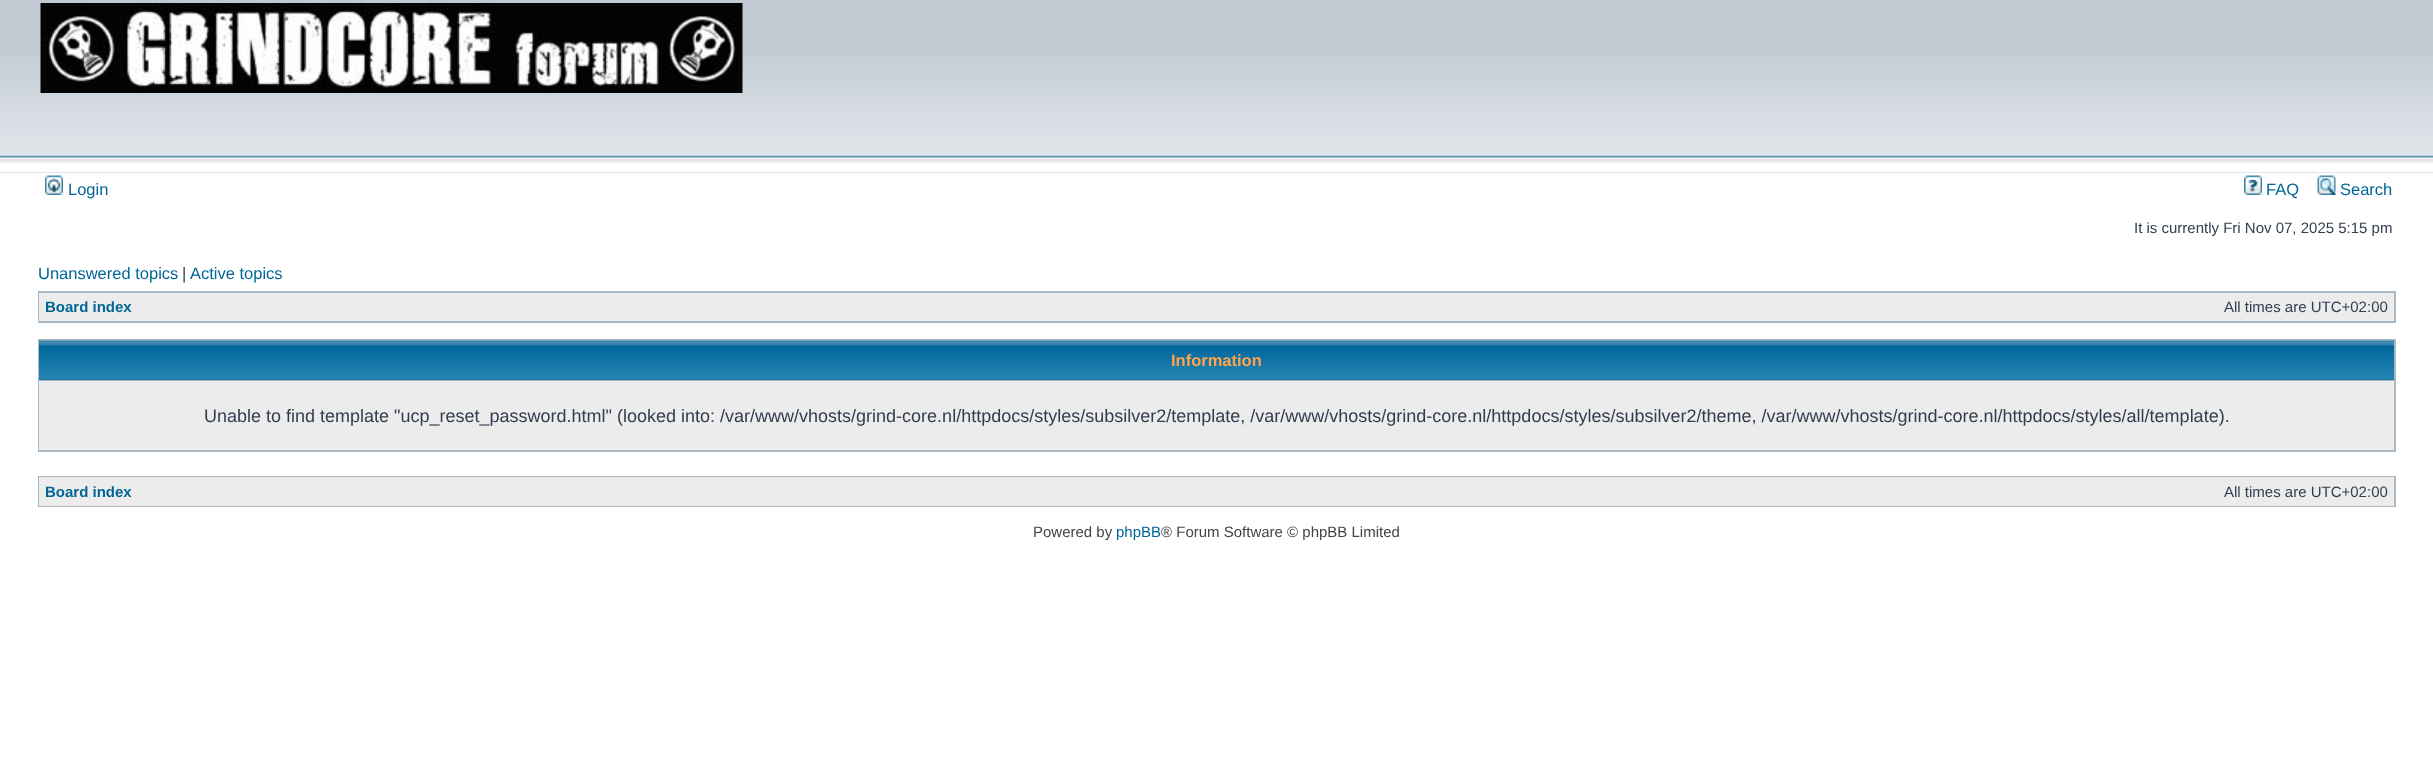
<?xml version="1.0" encoding="UTF-8"?>
<svg xmlns="http://www.w3.org/2000/svg" xmlns:xlink="http://www.w3.org/1999/xlink" width="2433" height="759">
  <rect width="100%" height="100%" fill="#ffffff" />
  <rect width="2433" height="173" fill="#c1cad2" />
  <image x="0" y="55" width="2433" height="118" xlink:href="image1.png" />
  <image x="40" y="3" width="703" height="90" xlink:href="image2.png" />
  <image x="45" y="175" width="18" height="20" xlink:href="image3.png" />
  <image x="2244" y="175" width="18" height="20" xlink:href="image4.png" />
  <image x="2317" y="175" width="19" height="20" xlink:href="image5.png" />
  <rect x="38" y="291" width="2358" height="32" fill="#a9b8c2" />
  <rect x="39" y="293" width="2355" height="28" fill="#ececec" />
  <rect x="38" y="339" width="2358" height="113" fill="#a9b8c2" />
  <rect x="39" y="379" width="2355" height="1" fill="#006699" />
  <image x="39" y="340" width="2355" height="40" xlink:href="image6.png" />
  <rect x="39" y="381" width="2355" height="69" fill="#ececec" />
  <rect x="38" y="476" width="2358" height="31" fill="#a9b8c2" />
  <rect x="39" y="477" width="2355" height="29" fill="#ececec" />
  <text x="68" y="195" style="font-family: Liberation Sans; font-size: 16.5px; fill: #006597">Login</text>
  <text x="2266" y="195" style="font-family: Liberation Sans; font-size: 16.5px; fill: #006597">FAQ</text>
  <text x="2340" y="195" style="font-family: Liberation Sans; font-size: 16.5px; fill: #006597">Search</text>
  <text x="2134" y="233" style="font-family: Liberation Sans; font-size: 15px; fill: #323d4f">It is currently Fri Nov 07, 2025 5:15 pm</text>
  <text x="38" y="279" style="font-family: Liberation Sans; font-size: 16.5px; fill: #006597">Unanswered topics</text>
  <text x="182" y="279" style="font-family: Liberation Sans; font-size: 16.5px; fill: #323d4f">|</text>
  <text x="190" y="279" style="font-family: Liberation Sans; font-size: 16.5px; fill: #006597">Active topics</text>
  <text x="45" y="312" style="font-family: Liberation Sans; font-size: 15px; font-weight: bold; fill: #006597">Board index</text>
  <text x="2224" y="312" style="font-family: Liberation Sans; font-size: 15px; fill: #323d4f">All times are UTC+02:00</text>
  <text x="1171" y="366" style="font-family: Liberation Sans; font-size: 16.5px; font-weight: bold; fill: #ffa34f">Information</text>
  <text x="204" y="422" style="font-family: Liberation Sans; font-size: 18px; fill: #323d4f">Unable to find template "ucp_reset_password.html" (looked into: /var/www/vhosts/grind-core.nl/httpdocs/styles/subsilver2/template, /var/www/vhosts/grind-core.nl/httpdocs/styles/subsilver2/theme, /var/www/vhosts/grind-core.nl/httpdocs/styles/all/template).</text>
  <text x="45" y="497" style="font-family: Liberation Sans; font-size: 15px; font-weight: bold; fill: #006597">Board index</text>
  <text x="2224" y="497" style="font-family: Liberation Sans; font-size: 15px; fill: #323d4f">All times are UTC+02:00</text>
  <text x="1033" y="537" style="font-family: Liberation Sans; font-size: 15px; fill: #444444">Powered by</text>
  <text x="1116" y="537" style="font-family: Liberation Sans; font-size: 15px; fill: #006597">phpBB</text>
  <text x="1161" y="537" style="font-family: Liberation Sans; font-size: 15px; fill: #444444">® Forum Software © phpBB Limited</text>
</svg>
